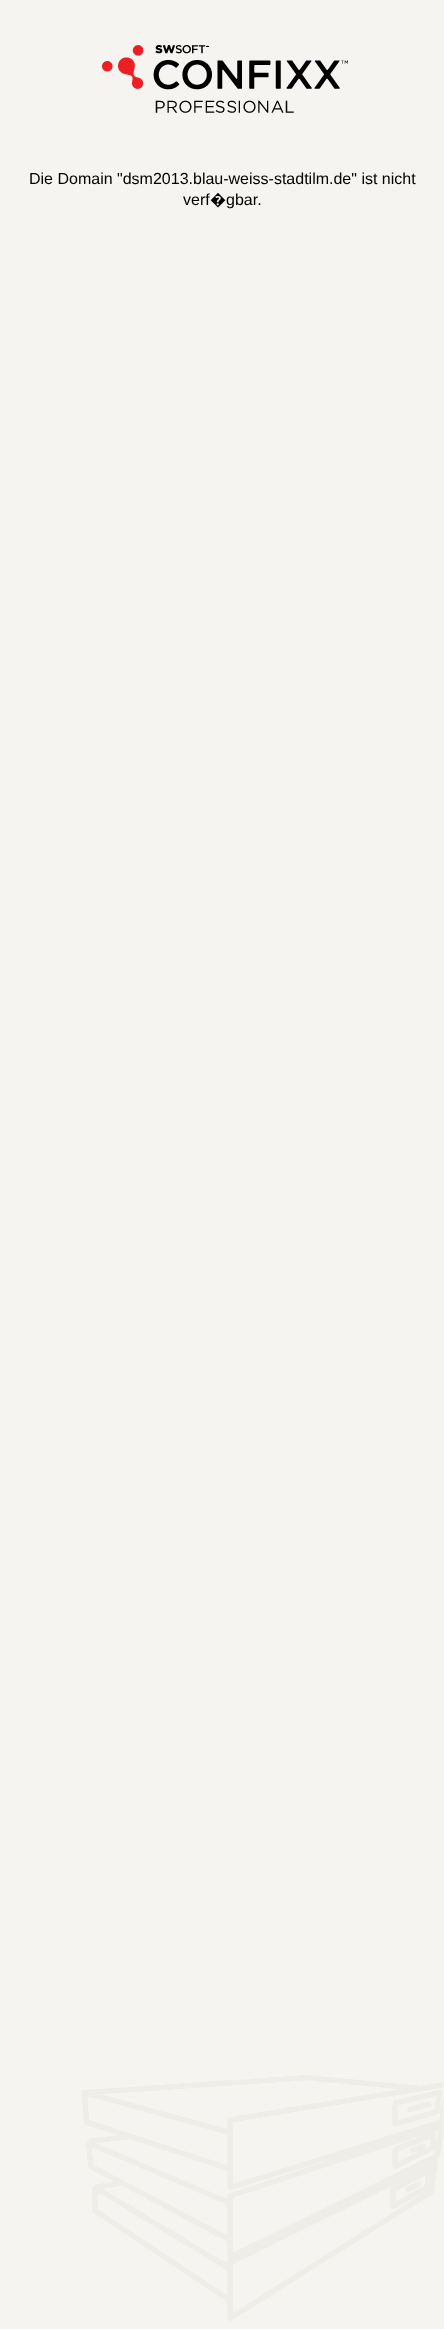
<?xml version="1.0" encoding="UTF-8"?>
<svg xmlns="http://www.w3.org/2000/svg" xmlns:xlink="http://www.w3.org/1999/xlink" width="444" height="2329">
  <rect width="100%" height="100%" fill="#f5f4f0" />
  <image x="82" y="2075" width="361" height="246" xlink:href="image1.png" />
  <image x="102" y="45" width="246" height="68" xlink:href="image2.png" />
  <text x="29" y="184" style="font-family: Liberation Sans; font-size: 16px; fill: #000000">Die Domain "dsm2013.blau-weiss-stadtilm.de" ist nicht</text>
  <text x="183" y="205" style="font-family: Liberation Sans; font-size: 16px; fill: #000000">verf</text>
  <text x="210" y="205" style="font-family: Noto Sans; font-size: 16px; fill: #000000">�</text>
  <text x="226" y="205" style="font-family: Liberation Sans; font-size: 16px; fill: #000000">gbar.</text>
</svg>
